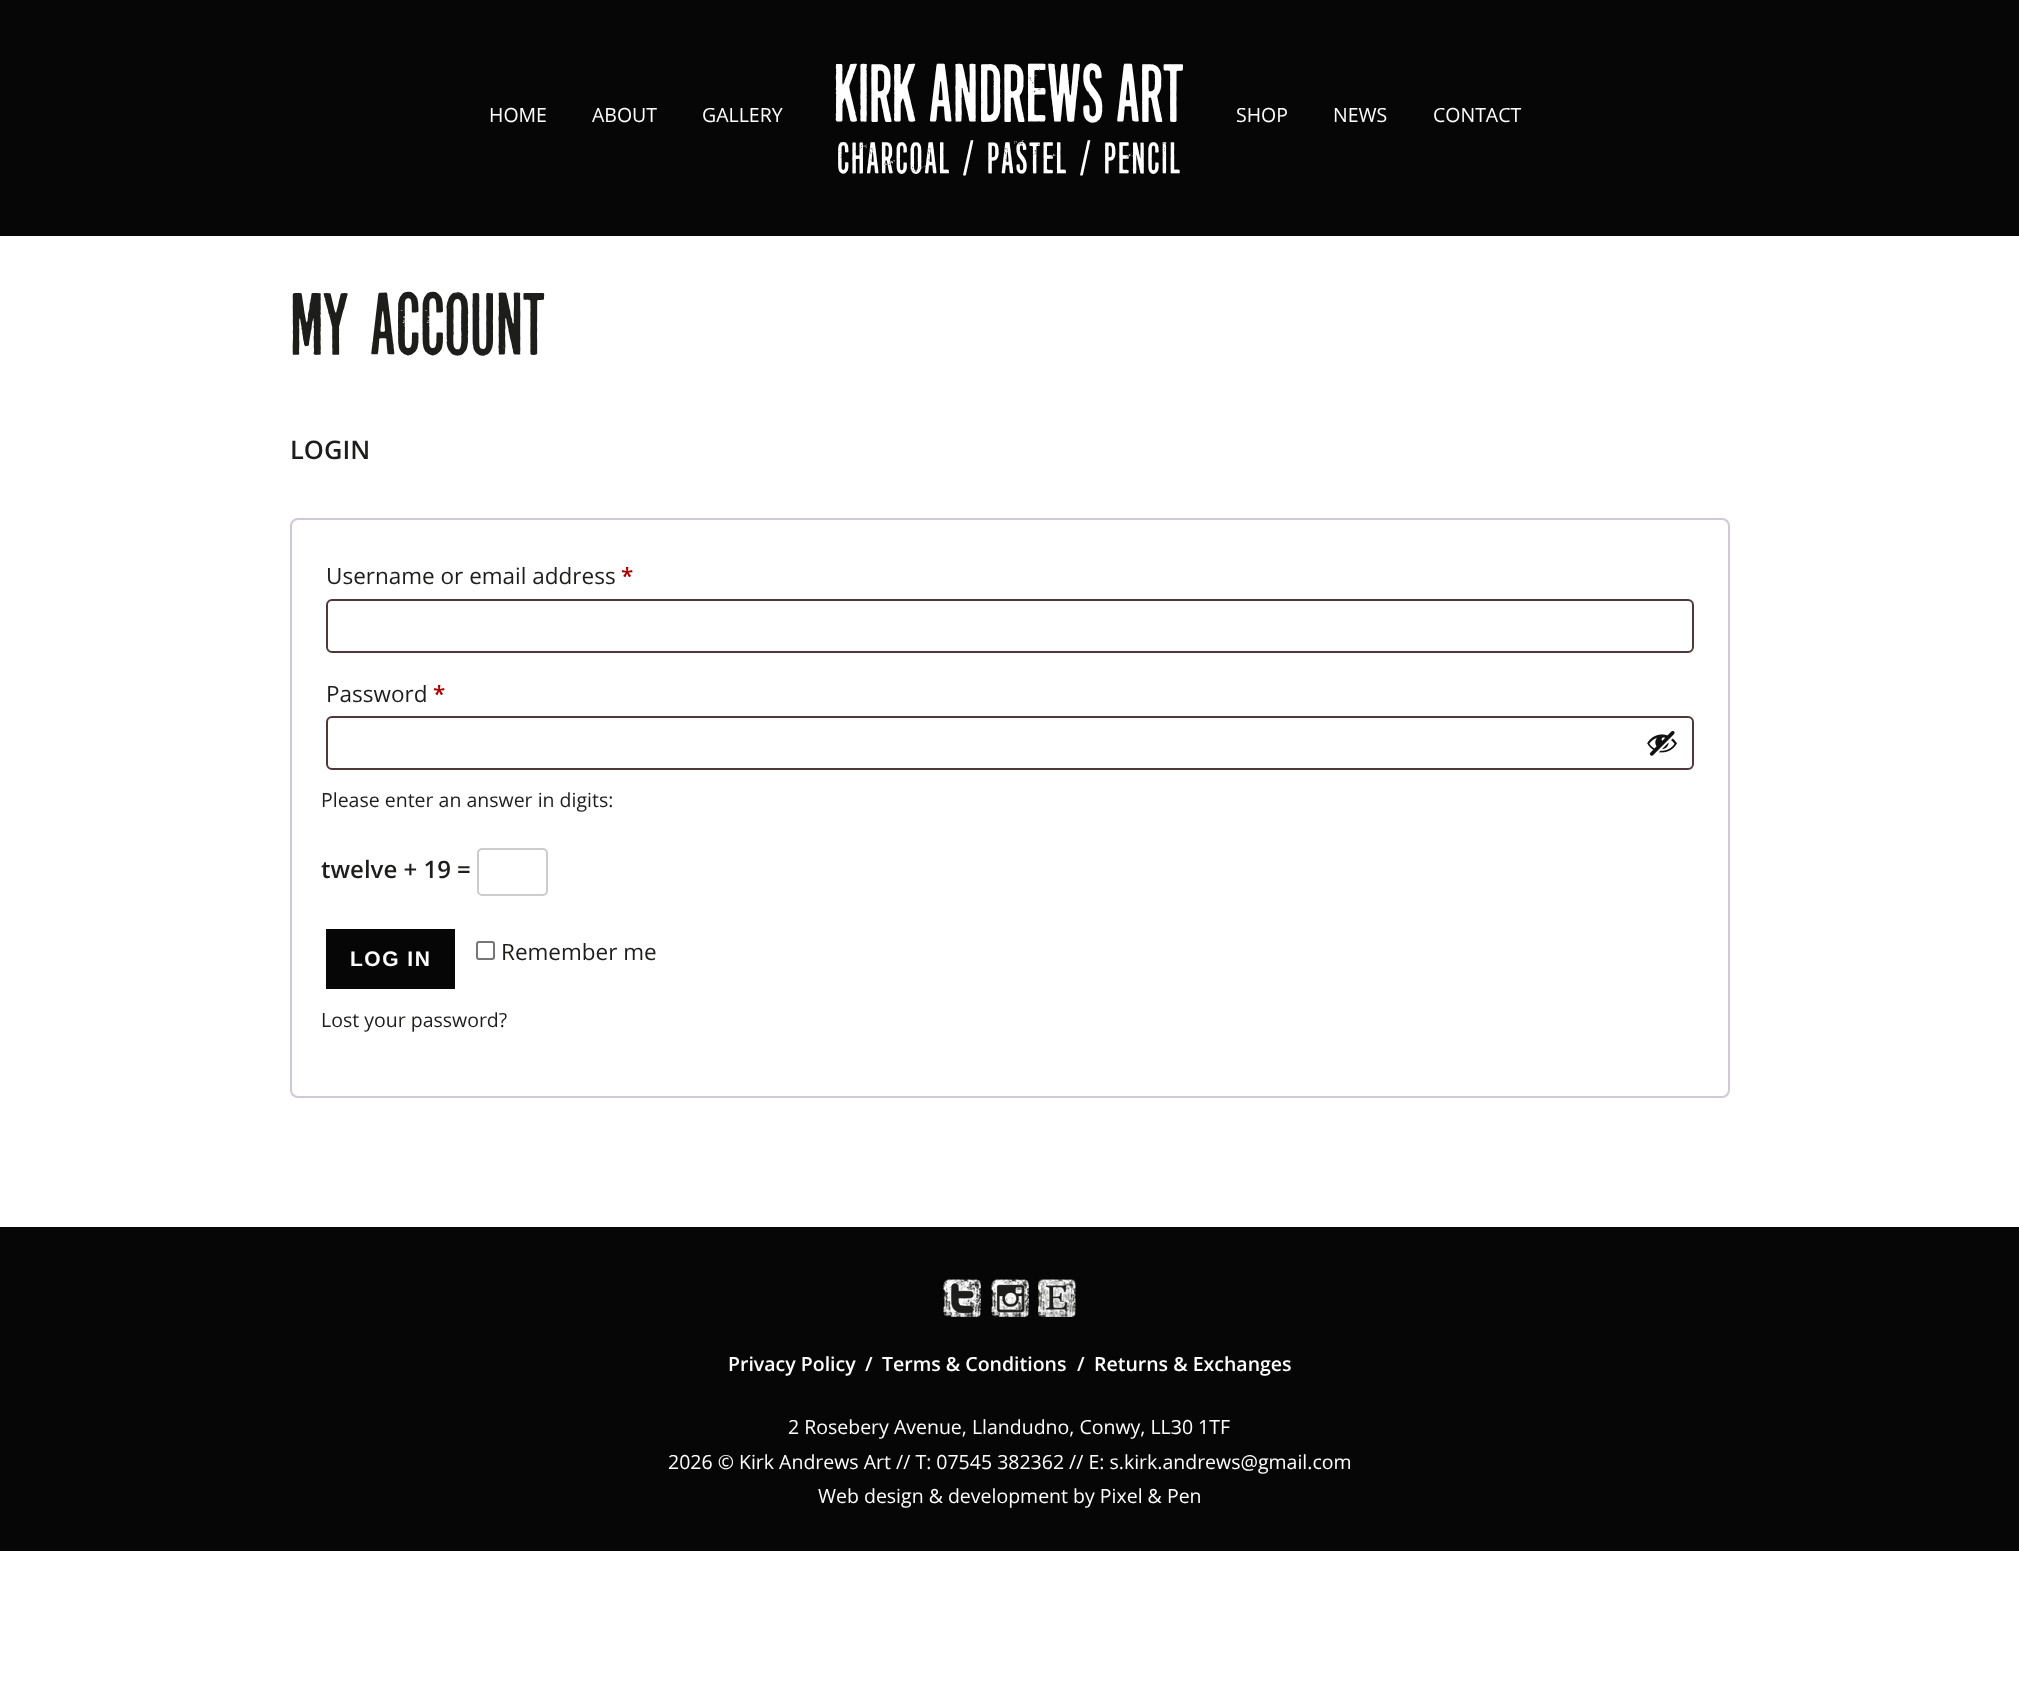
<?xml version="1.0" encoding="UTF-8"?>
<svg xmlns="http://www.w3.org/2000/svg" xmlns:xlink="http://www.w3.org/1999/xlink" width="2019" height="1695">
  <rect width="100%" height="100%" fill="#ffffff" />
  <rect width="2019" height="236" fill="#060606" />
  <rect x="291" y="519" width="1438" height="578" rx="7" fill="none" stroke="#cfc8d8" stroke-width="2" />
  <rect x="327" y="600" width="1366" height="52" rx="5" fill="none" stroke="#4d3939" stroke-width="2" />
  <rect x="327" y="717" width="1366" height="52" rx="5" fill="none" stroke="#4d3939" stroke-width="2" />
  <image x="1647" y="731" width="30" height="25" xlink:href="image1.png" />
  <rect x="478" y="849" width="69" height="46" rx="4" fill="none" stroke="#cccccc" stroke-width="2" />
  <rect x="326" y="929" width="129" height="60" fill="#060606" />
  <rect x="477" y="942" width="17" height="17" rx="2" fill="none" stroke="#767676" stroke-width="2" />
  <rect y="1227" width="2019" height="324" fill="#060606" />
  <image x="943" y="1279" width="38" height="38" xlink:href="image2.png" />
  <image x="991" y="1279" width="38" height="38" xlink:href="image3.png" />
  <image x="1038" y="1279" width="38" height="38" xlink:href="image4.png" />
  <text x="489" y="122" style="font-family: Open Sans; font-size: 19.5px; fill: #ffffff">HOME</text>
  <text x="592" y="122" style="font-family: Open Sans; font-size: 19.5px; fill: #ffffff">ABOUT</text>
  <text x="702" y="122" style="font-family: Open Sans; font-size: 19.5px; fill: #ffffff">GALLERY</text>
  <text x="834" y="123" word-spacing="-8" style="font-family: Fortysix; font-size: 84px; fill: #ffffff">KIRK ANDREWS ART</text>
  <text x="837" y="174" style="font-family: Fortysix; font-size: 45px; letter-spacing: 1.95px; fill: #ffffff">Charcoal / Pastel / Pencil</text>
  <text x="1236" y="122" style="font-family: Open Sans; font-size: 19.5px; fill: #ffffff">SHOP</text>
  <text x="1333" y="122" style="font-family: Open Sans; font-size: 19.5px; fill: #ffffff">NEWS</text>
  <text x="1433" y="122" style="font-family: Open Sans; font-size: 19.5px; fill: #ffffff">CONTACT</text>
  <text x="290" y="356" style="font-family: Fortysix; font-size: 90px; fill: #1d1d1b">MY ACCOUNT</text>
  <text x="290" y="459" style="font-family: Open Sans; font-size: 25.5px; font-weight: 600; fill: #1d1d1b">LOGIN</text>
  <text x="326" y="584" style="font-family: Open Sans; font-size: 22.5px; fill: #1d1d1b">Username or email address</text>
  <text x="621" y="584" style="font-family: Open Sans; font-size: 22.5px; font-weight: 600; fill: #aa0000">*</text>
  <text x="326" y="702" style="font-family: Open Sans; font-size: 22.5px; fill: #1d1d1b">Password</text>
  <text x="433" y="702" style="font-family: Open Sans; font-size: 22.5px; font-weight: 600; fill: #aa0000">*</text>
  <text x="321" y="807" style="font-family: Open Sans; font-size: 19.5px; fill: #1d1d1b">Please enter an answer in digits:</text>
  <text x="321" y="878" style="font-family: Open Sans; font-size: 24px; font-weight: 600; fill: #1d1d1b">twelve + 19 =</text>
  <text x="350" y="966" style="font-family: Liberation Sans; font-size: 21px; font-weight: bold; letter-spacing: 1.5px; fill: #ffffff">LOG IN</text>
  <text x="501" y="960" style="font-family: Open Sans; font-size: 22.5px; fill: #1d1d1b">Remember me</text>
  <text x="321" y="1027" style="font-family: Open Sans; font-size: 19.5px; fill: #1d1d1b">Lost your password?</text>
  <text x="728" y="1371" style="font-family: Open Sans; font-size: 19.5px; font-weight: 600; fill: #ffffff">Privacy Policy</text>
  <text x="865" y="1371" style="font-family: Open Sans; font-size: 19.5px; font-weight: 600; fill: #ffffff">/</text>
  <text x="882" y="1371" style="font-family: Open Sans; font-size: 19.5px; font-weight: 600; fill: #ffffff">Terms &amp; Conditions</text>
  <text x="1077" y="1371" style="font-family: Open Sans; font-size: 19.5px; font-weight: 600; fill: #ffffff">/</text>
  <text x="1094" y="1371" style="font-family: Open Sans; font-size: 19.5px; font-weight: 600; fill: #ffffff">Returns &amp; Exchanges</text>
  <text x="788" y="1434" style="font-family: Open Sans; font-size: 19.5px; fill: #ffffff">2 Rosebery Avenue, Llandudno, Conwy, LL30 1TF</text>
  <text x="668" y="1469" style="font-family: Open Sans; font-size: 19.5px; fill: #ffffff">2026 © Kirk Andrews Art // T: 07545 382362 // E: s.kirk.andrews@gmail.com</text>
  <text x="818" y="1503" style="font-family: Open Sans; font-size: 19.5px; fill: #ffffff">Web design &amp; development by Pixel &amp; Pen</text>
</svg>
